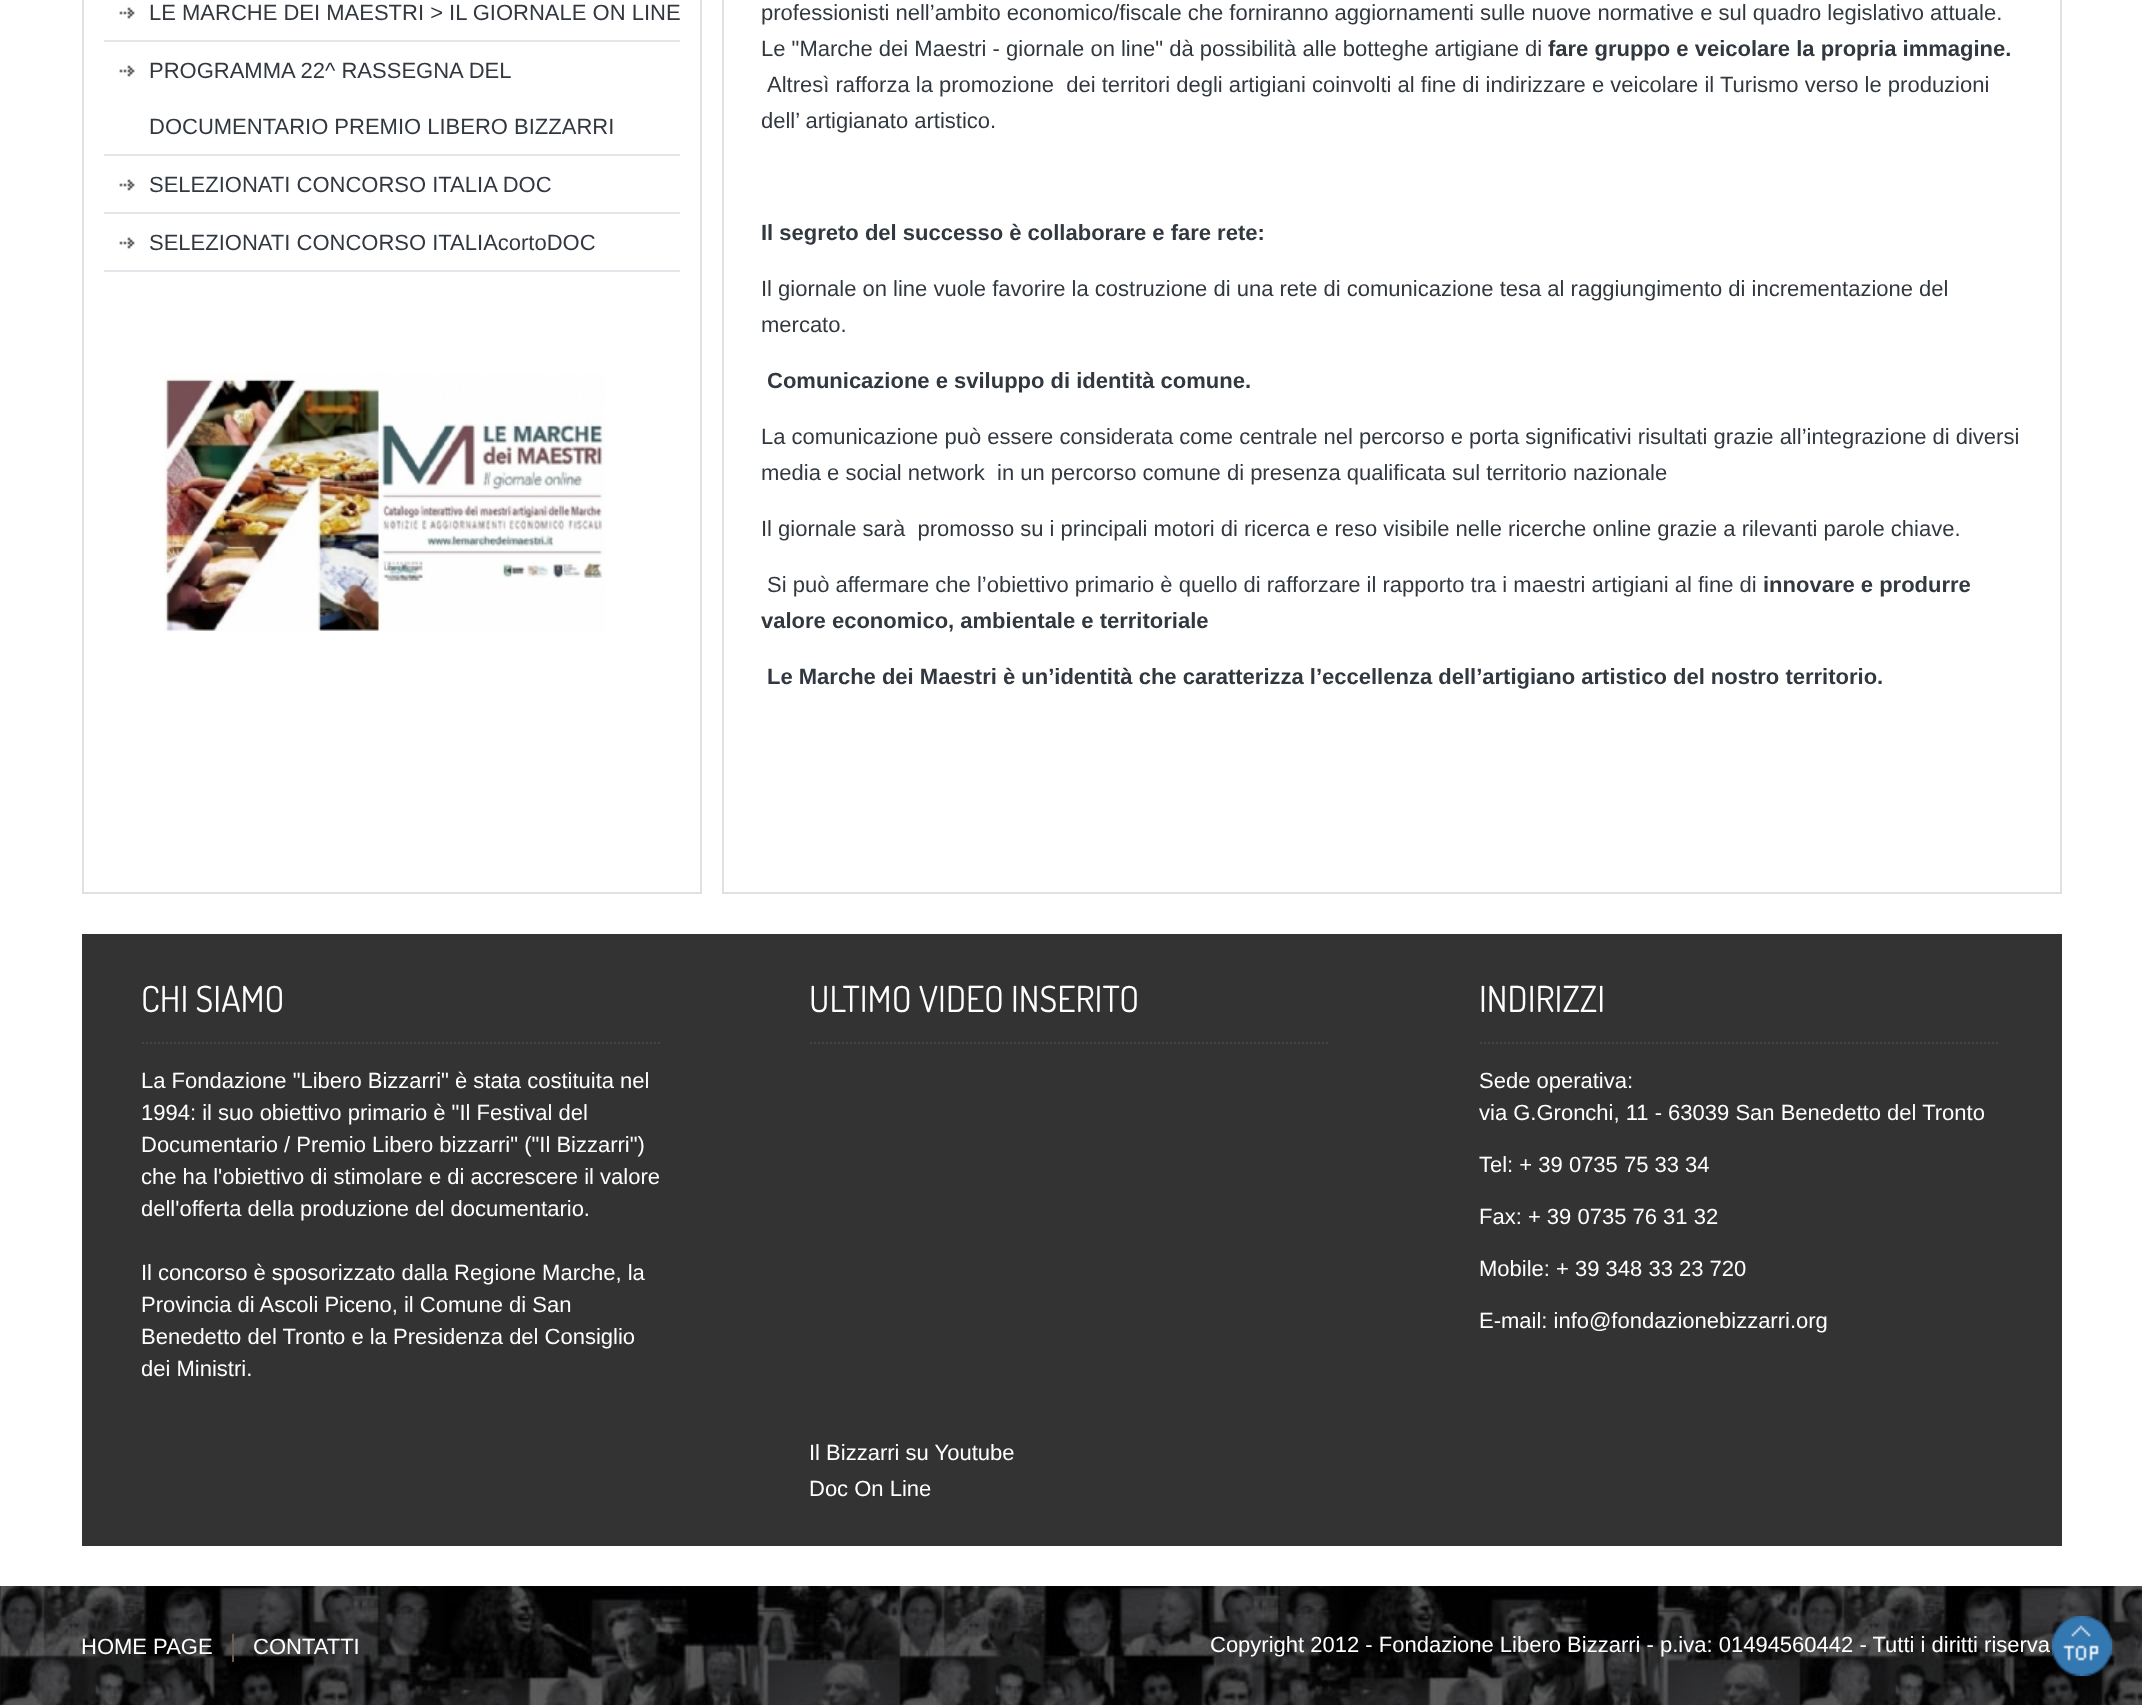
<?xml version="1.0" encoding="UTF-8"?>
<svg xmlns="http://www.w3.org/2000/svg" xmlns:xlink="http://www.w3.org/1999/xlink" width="2142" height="1705">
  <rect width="100%" height="100%" fill="#ffffff" />
  <rect x="700" width="2" height="894" fill="#e1e1e1" />
  <rect x="82" y="892" width="620" height="2" fill="#e1e1e1" />
  <rect x="82" width="2" height="894" fill="#e1e1e1" />
  <image x="119" y="7" width="16" height="12" xlink:href="image1.png" />
  <rect x="104" y="40" width="576" height="2" fill="#e3e7eb" />
  <image x="119" y="65" width="16" height="12" xlink:href="image1.png" />
  <rect x="104" y="154" width="576" height="2" fill="#e3e7eb" />
  <image x="119" y="179" width="16" height="12" xlink:href="image1.png" />
  <rect x="104" y="212" width="576" height="2" fill="#e3e7eb" />
  <image x="119" y="237" width="16" height="12" xlink:href="image1.png" />
  <rect x="104" y="270" width="576" height="2" fill="#e3e7eb" />
  <image x="164" y="372" width="441" height="260" xlink:href="image2.png" />
  <rect x="2060" width="2" height="894" fill="#e1e1e1" />
  <rect x="722" y="892" width="1340" height="2" fill="#e1e1e1" />
  <rect x="722" width="2" height="894" fill="#e1e1e1" />
  <rect x="82" y="934" width="1980" height="612" fill="#333333" />
  <path d="M 142 1043 h 520" fill="none" stroke="#444444" stroke-width="2" stroke-dasharray="2 2" />
  <path d="M 810 1043 h 520" fill="none" stroke="#444444" stroke-width="2" stroke-dasharray="2 2" />
  <path d="M 1480 1043 h 520" fill="none" stroke="#444444" stroke-width="2" stroke-dasharray="2 2" />
  <image x="0" y="1586" width="2142" height="119" xlink:href="image3.png" />
  <image x="232" y="1633" width="2" height="29" xlink:href="image4.png" />
  <image x="2052" y="1616" width="60" height="60" xlink:href="image5.png" />
  <text x="149" y="20" style="font-family: Liberation Sans; font-size: 22px; fill: #32383f">LE MARCHE DEI MAESTRI &gt; IL GIORNALE ON LINE</text>
  <text x="149" y="78" style="font-family: Liberation Sans; font-size: 22px; fill: #32383f">PROGRAMMA 22^ RASSEGNA DEL</text>
  <text x="149" y="134" style="font-family: Liberation Sans; font-size: 22px; fill: #32383f">DOCUMENTARIO PREMIO LIBERO BIZZARRI</text>
  <text x="149" y="192" style="font-family: Liberation Sans; font-size: 22px; fill: #32383f">SELEZIONATI CONCORSO ITALIA DOC</text>
  <text x="149" y="250" style="font-family: Liberation Sans; font-size: 22px; fill: #32383f">SELEZIONATI CONCORSO ITALIAcortoDOC</text>
  <text x="761" y="20" style="font-family: Liberation Sans; font-size: 22px; fill: #32383f">professionisti nell’ambito economico/fiscale che forniranno aggiornamenti sulle nuove normative e sul quadro legislativo attuale.</text>
  <text x="761" y="56" style="font-family: Liberation Sans; font-size: 22px; fill: #32383f">Le "Marche dei Maestri - giornale on line" dà possibilità alle botteghe artigiane di</text>
  <text x="1548" y="56" style="font-family: Liberation Sans; font-size: 22px; font-weight: bold; fill: #32383f">fare gruppo e veicolare la propria immagine.</text>
  <text x="767" y="92" style="font-family: Liberation Sans; font-size: 22px; fill: #32383f" xml:space="preserve">Altresì rafforza la promozione  dei territori degli artigiani coinvolti al fine di indirizzare e veicolare il Turismo verso le produzioni</text>
  <text x="761" y="128" style="font-family: Liberation Sans; font-size: 22px; fill: #32383f">dell’ artigianato artistico.</text>
  <text x="761" y="240" style="font-family: Liberation Sans; font-size: 22px; font-weight: bold; fill: #32383f">Il segreto del successo è collaborare e fare rete:</text>
  <text x="761" y="296" style="font-family: Liberation Sans; font-size: 22px; fill: #32383f">Il giornale on line vuole favorire la costruzione di una rete di comunicazione tesa al raggiungimento di incrementazione del</text>
  <text x="761" y="332" style="font-family: Liberation Sans; font-size: 22px; fill: #32383f">mercato.</text>
  <text x="767" y="388" style="font-family: Liberation Sans; font-size: 22px; font-weight: bold; fill: #32383f">Comunicazione e sviluppo di identità comune.</text>
  <text x="761" y="444" style="font-family: Liberation Sans; font-size: 22px; fill: #32383f">La comunicazione può essere considerata come centrale nel percorso e porta significativi risultati grazie all’integrazione di diversi</text>
  <text x="761" y="480" style="font-family: Liberation Sans; font-size: 22px; fill: #32383f" xml:space="preserve">media e social network  in un percorso comune di presenza qualificata sul territorio nazionale</text>
  <text x="761" y="536" style="font-family: Liberation Sans; font-size: 22px; fill: #32383f" xml:space="preserve">Il giornale sarà  promosso su i principali motori di ricerca e reso visibile nelle ricerche online grazie a rilevanti parole chiave.</text>
  <text x="767" y="592" style="font-family: Liberation Sans; font-size: 22px; fill: #32383f">Si può affermare che l’obiettivo primario è quello di rafforzare il rapporto tra i maestri artigiani al fine di</text>
  <text x="1763" y="592" style="font-family: Liberation Sans; font-size: 22px; font-weight: bold; fill: #32383f">innovare e produrre</text>
  <text x="761" y="628" style="font-family: Liberation Sans; font-size: 22px; font-weight: bold; fill: #32383f">valore economico, ambientale e territoriale</text>
  <text x="767" y="684" style="font-family: Liberation Sans; font-size: 22px; font-weight: bold; fill: #32383f">Le Marche dei Maestri è un’identità che caratterizza l’eccellenza dell’artigiano artistico del nostro territorio.</text>
  <text x="141" y="1012" style="font-family: Dosis; font-size: 36px; fill: #ffffff">CHI SIAMO</text>
  <text x="141" y="1088" style="font-family: Liberation Sans; font-size: 22px; fill: #ffffff">La Fondazione "Libero Bizzarri" è stata costituita nel</text>
  <text x="141" y="1120" style="font-family: Liberation Sans; font-size: 22px; fill: #ffffff">1994: il suo obiettivo primario è "Il Festival del</text>
  <text x="141" y="1152" style="font-family: Liberation Sans; font-size: 22px; fill: #ffffff">Documentario / Premio Libero bizzarri" ("Il Bizzarri")</text>
  <text x="141" y="1184" style="font-family: Liberation Sans; font-size: 22px; fill: #ffffff">che ha l'obiettivo di stimolare e di accrescere il valore</text>
  <text x="141" y="1216" style="font-family: Liberation Sans; font-size: 22px; fill: #ffffff">dell'offerta della produzione del documentario.</text>
  <text x="141" y="1280" style="font-family: Liberation Sans; font-size: 22px; fill: #ffffff">Il concorso è sposorizzato dalla Regione Marche, la</text>
  <text x="141" y="1312" style="font-family: Liberation Sans; font-size: 22px; fill: #ffffff">Provincia di Ascoli Piceno, il Comune di San</text>
  <text x="141" y="1344" style="font-family: Liberation Sans; font-size: 22px; fill: #ffffff">Benedetto del Tronto e la Presidenza del Consiglio</text>
  <text x="141" y="1376" style="font-family: Liberation Sans; font-size: 22px; fill: #ffffff">dei Ministri.</text>
  <text x="809" y="1012" style="font-family: Dosis; font-size: 36px; fill: #ffffff">ULTIMO VIDEO INSERITO</text>
  <text x="809" y="1460" style="font-family: Liberation Sans; font-size: 22px; fill: #ffffff">Il Bizzarri su Youtube</text>
  <text x="809" y="1496" style="font-family: Liberation Sans; font-size: 22px; fill: #ffffff">Doc On Line</text>
  <text x="1479" y="1012" style="font-family: Dosis; font-size: 36px; fill: #ffffff">INDIRIZZI</text>
  <text x="1479" y="1088" style="font-family: Liberation Sans; font-size: 22px; fill: #ffffff">Sede operativa:</text>
  <text x="1479" y="1120" style="font-family: Liberation Sans; font-size: 22px; fill: #ffffff">via G.Gronchi, 11 - 63039 San Benedetto del Tronto</text>
  <text x="1479" y="1172" style="font-family: Liberation Sans; font-size: 22px; fill: #ffffff">Tel: + 39 0735 75 33 34</text>
  <text x="1479" y="1224" style="font-family: Liberation Sans; font-size: 22px; fill: #ffffff">Fax: + 39 0735 76 31 32</text>
  <text x="1479" y="1276" style="font-family: Liberation Sans; font-size: 22px; fill: #ffffff">Mobile: + 39 348 33 23 720</text>
  <text x="1479" y="1328" style="font-family: Liberation Sans; font-size: 22px; fill: #ffffff">E-mail: info@fondazionebizzarri.org</text>
  <text x="81" y="1654" style="font-family: Liberation Sans; font-size: 22px; fill: #ffffff">HOME PAGE</text>
  <text x="253" y="1654" style="font-family: Liberation Sans; font-size: 22px; fill: #ffffff">CONTATTI</text>
  <text x="1210" y="1652" style="font-family: Liberation Sans; font-size: 22px; fill: #ffffff">Copyright 2012 - Fondazione Libero Bizzarri - p.iva: 01494560442 - Tutti i diritti riserva</text>
</svg>
